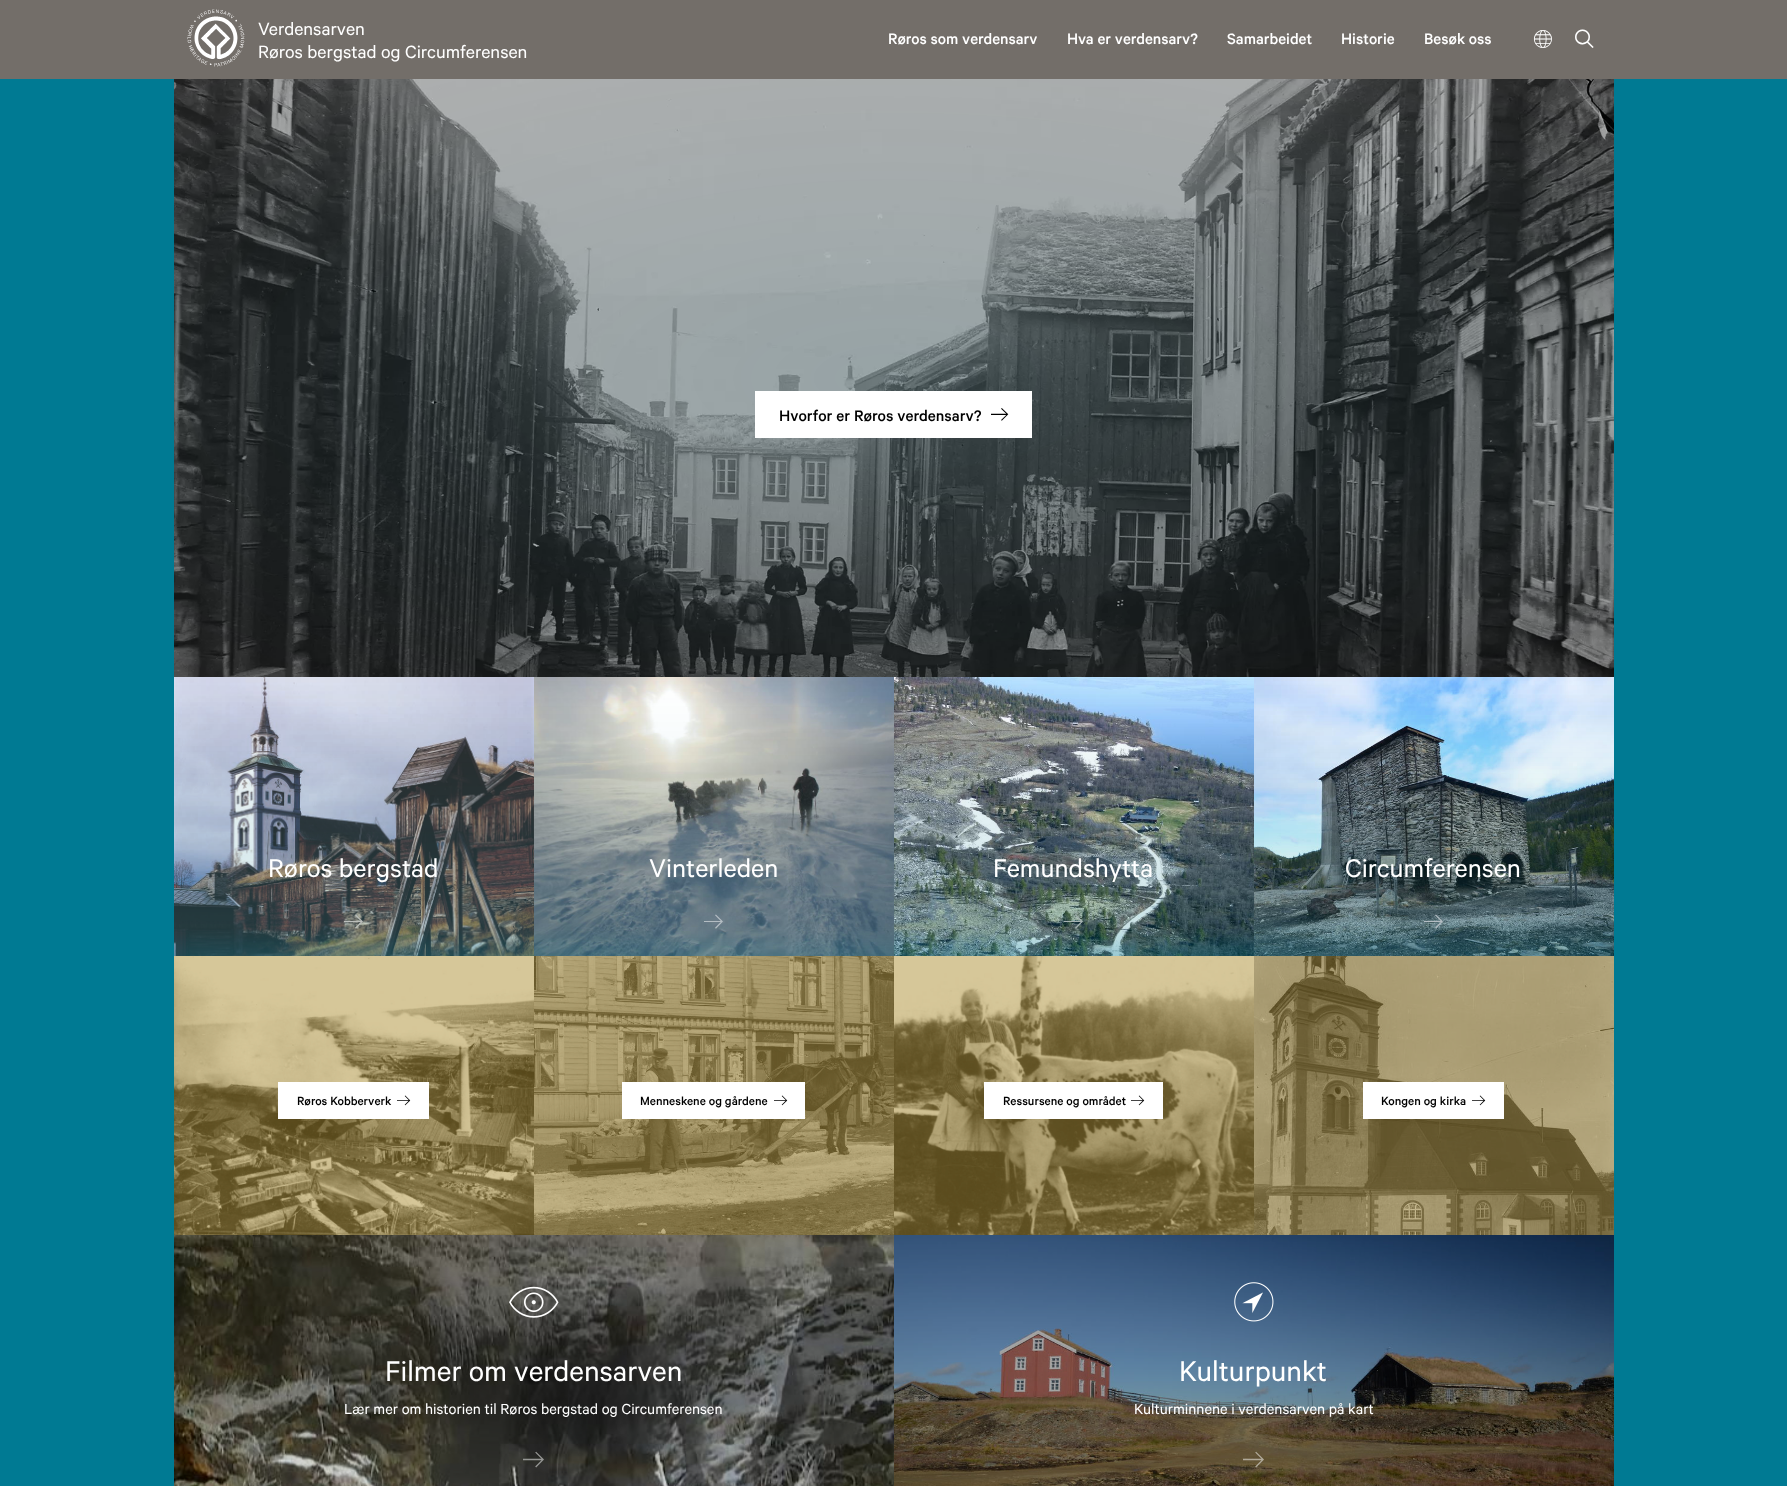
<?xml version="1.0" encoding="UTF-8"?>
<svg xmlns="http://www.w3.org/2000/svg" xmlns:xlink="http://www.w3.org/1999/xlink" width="1787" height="1486">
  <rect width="100%" height="100%" fill="#007a93" />
  <rect width="1787" height="79" fill="#736e69" />
  <image x="187" y="9" width="58" height="58" xlink:href="image1.png" />
  <image x="174" y="79" width="1440" height="598" xlink:href="image2.png" />
  <rect x="755" y="391" width="277" height="47" fill="#ffffff" />
  <image x="174" y="677" width="360" height="279" xlink:href="image3.png" />
  <image x="534" y="677" width="360" height="279" xlink:href="image4.png" />
  <image x="894" y="677" width="360" height="279" xlink:href="image5.png" />
  <image x="1254" y="677" width="360" height="279" xlink:href="image6.png" />
  <image x="174" y="956" width="360" height="279" xlink:href="image7.png" />
  <rect x="278" y="1082" width="151" height="37" fill="#ffffff" />
  <image x="534" y="956" width="360" height="279" xlink:href="image8.png" />
  <rect x="622" y="1082" width="183" height="37" fill="#ffffff" />
  <image x="894" y="956" width="360" height="279" xlink:href="image9.png" />
  <rect x="984" y="1082" width="179" height="37" fill="#ffffff" />
  <image x="1254" y="956" width="360" height="279" xlink:href="image10.png" />
  <rect x="1363" y="1082" width="141" height="37" fill="#ffffff" />
  <image x="174" y="1235" width="720" height="251" xlink:href="image11.png" />
  <image x="509" y="1286" width="50" height="32" xlink:href="image12.png" />
  <image x="894" y="1235" width="720" height="251" xlink:href="image13.png" />
  <image x="1234" y="1282" width="40" height="40" xlink:href="image14.png" />
  <text x="258" y="35" style="font-family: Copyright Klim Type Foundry; font-size: 20px; fill: #ffffff">Verdensarven</text>
  <text x="258" y="58" style="font-family: Copyright Klim Type Foundry; font-size: 20px; fill: #ffffff">Røros bergstad og Circumferensen</text>
  <text x="888" y="44" style="font-family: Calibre; font-size: 17px; font-weight: 500; fill: #ffffff">Røros som verdensarv</text>
  <text x="1067" y="44" style="font-family: Calibre; font-size: 17px; font-weight: 500; fill: #ffffff">Hva er verdensarv?</text>
  <text x="1227" y="44" style="font-family: Calibre; font-size: 17px; font-weight: 500; fill: #ffffff">Samarbeidet</text>
  <text x="1341" y="44" style="font-family: Calibre; font-size: 17px; font-weight: 500; fill: #ffffff">Historie</text>
  <text x="1424" y="44" style="font-family: Calibre; font-size: 17px; font-weight: 500; fill: #ffffff">Besøk oss</text>
  <text x="1534" y="48" style="font-family: 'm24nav'; font-size: 18px; fill: #ffffff">⚐</text>
  <text x="1575" y="51" style="font-family: 'm24nav'; font-size: 24px; fill: #ffffff">☉</text>
  <text x="779" y="421" style="font-family: Calibre; font-size: 17.3px; font-weight: 500; fill: #000000">Hvorfor er Røros verdensarv?</text>
  <text x="991" y="423" style="font-family: 'm24nav'; font-size: 17.3px; fill: #000000">→</text>
  <text x="268" y="877" style="font-family: Copyright Klim Type Foundry; font-size: 28.75px; fill: #ffffff">Røros bergstad</text>
  <text x="344" y="931" style="font-family: 'm24nav'; font-size: 19px; fill: #bbbebb">→</text>
  <text x="649" y="877" style="font-family: Copyright Klim Type Foundry; font-size: 28.75px; fill: #ffffff">Vinterleden</text>
  <text x="704" y="931" style="font-family: 'm24nav'; font-size: 19px; fill: #b4bdc3">→</text>
  <text x="993" y="877" style="font-family: Copyright Klim Type Foundry; font-size: 28.75px; fill: #ffffff">Femundshytta</text>
  <text x="1064" y="931" style="font-family: 'm24nav'; font-size: 19px; fill: #a5b2b1">→</text>
  <text x="1345" y="877" style="font-family: Copyright Klim Type Foundry; font-size: 28.75px; fill: #ffffff">Circumferensen</text>
  <text x="1424" y="931" style="font-family: 'm24nav'; font-size: 19px; fill: #b4bdc3">→</text>
  <text x="297" y="1105" style="font-family: Calibre; font-size: 13.25px; font-weight: 500; fill: #000000">Røros Kobberverk</text>
  <text x="397" y="1107" style="font-family: 'm24nav'; font-size: 13.25px; fill: #000000">→</text>
  <text x="640" y="1105" style="font-family: Calibre; font-size: 13.25px; font-weight: 500; fill: #000000">Menneskene og gårdene</text>
  <text x="774" y="1107" style="font-family: 'm24nav'; font-size: 13.25px; fill: #000000">→</text>
  <text x="1003" y="1105" style="font-family: Calibre; font-size: 13.25px; font-weight: 500; fill: #000000">Ressursene og området</text>
  <text x="1131" y="1107" style="font-family: 'm24nav'; font-size: 13.25px; fill: #000000">→</text>
  <text x="1381" y="1105" style="font-family: Calibre; font-size: 13.25px; font-weight: 500; fill: #000000">Kongen og kirka</text>
  <text x="1472" y="1107" style="font-family: 'm24nav'; font-size: 13.25px; fill: #000000">→</text>
  <text x="385" y="1381" style="font-family: Copyright Klim Type Foundry; font-size: 32px; fill: #ffffff">Filmer om verdensarven</text>
  <text x="344" y="1414" style="font-family: Copyright Klim Type Foundry; font-size: 16.5px; fill: #ffffff">Lær mer om historien til Røros bergstad og Circumferensen</text>
  <text x="523" y="1470" style="font-family: 'm24nav'; font-size: 21px; fill: #959694">→</text>
  <text x="1179" y="1381" style="font-family: Copyright Klim Type Foundry; font-size: 32px; fill: #ffffff">Kulturpunkt</text>
  <text x="1134" y="1414" style="font-family: Copyright Klim Type Foundry; font-size: 16.5px; fill: #ffffff">Kulturminnene i verdensarven på kart</text>
  <text x="1243" y="1470" style="font-family: 'm24nav'; font-size: 21px; fill: #b0a99a">→</text>
</svg>
